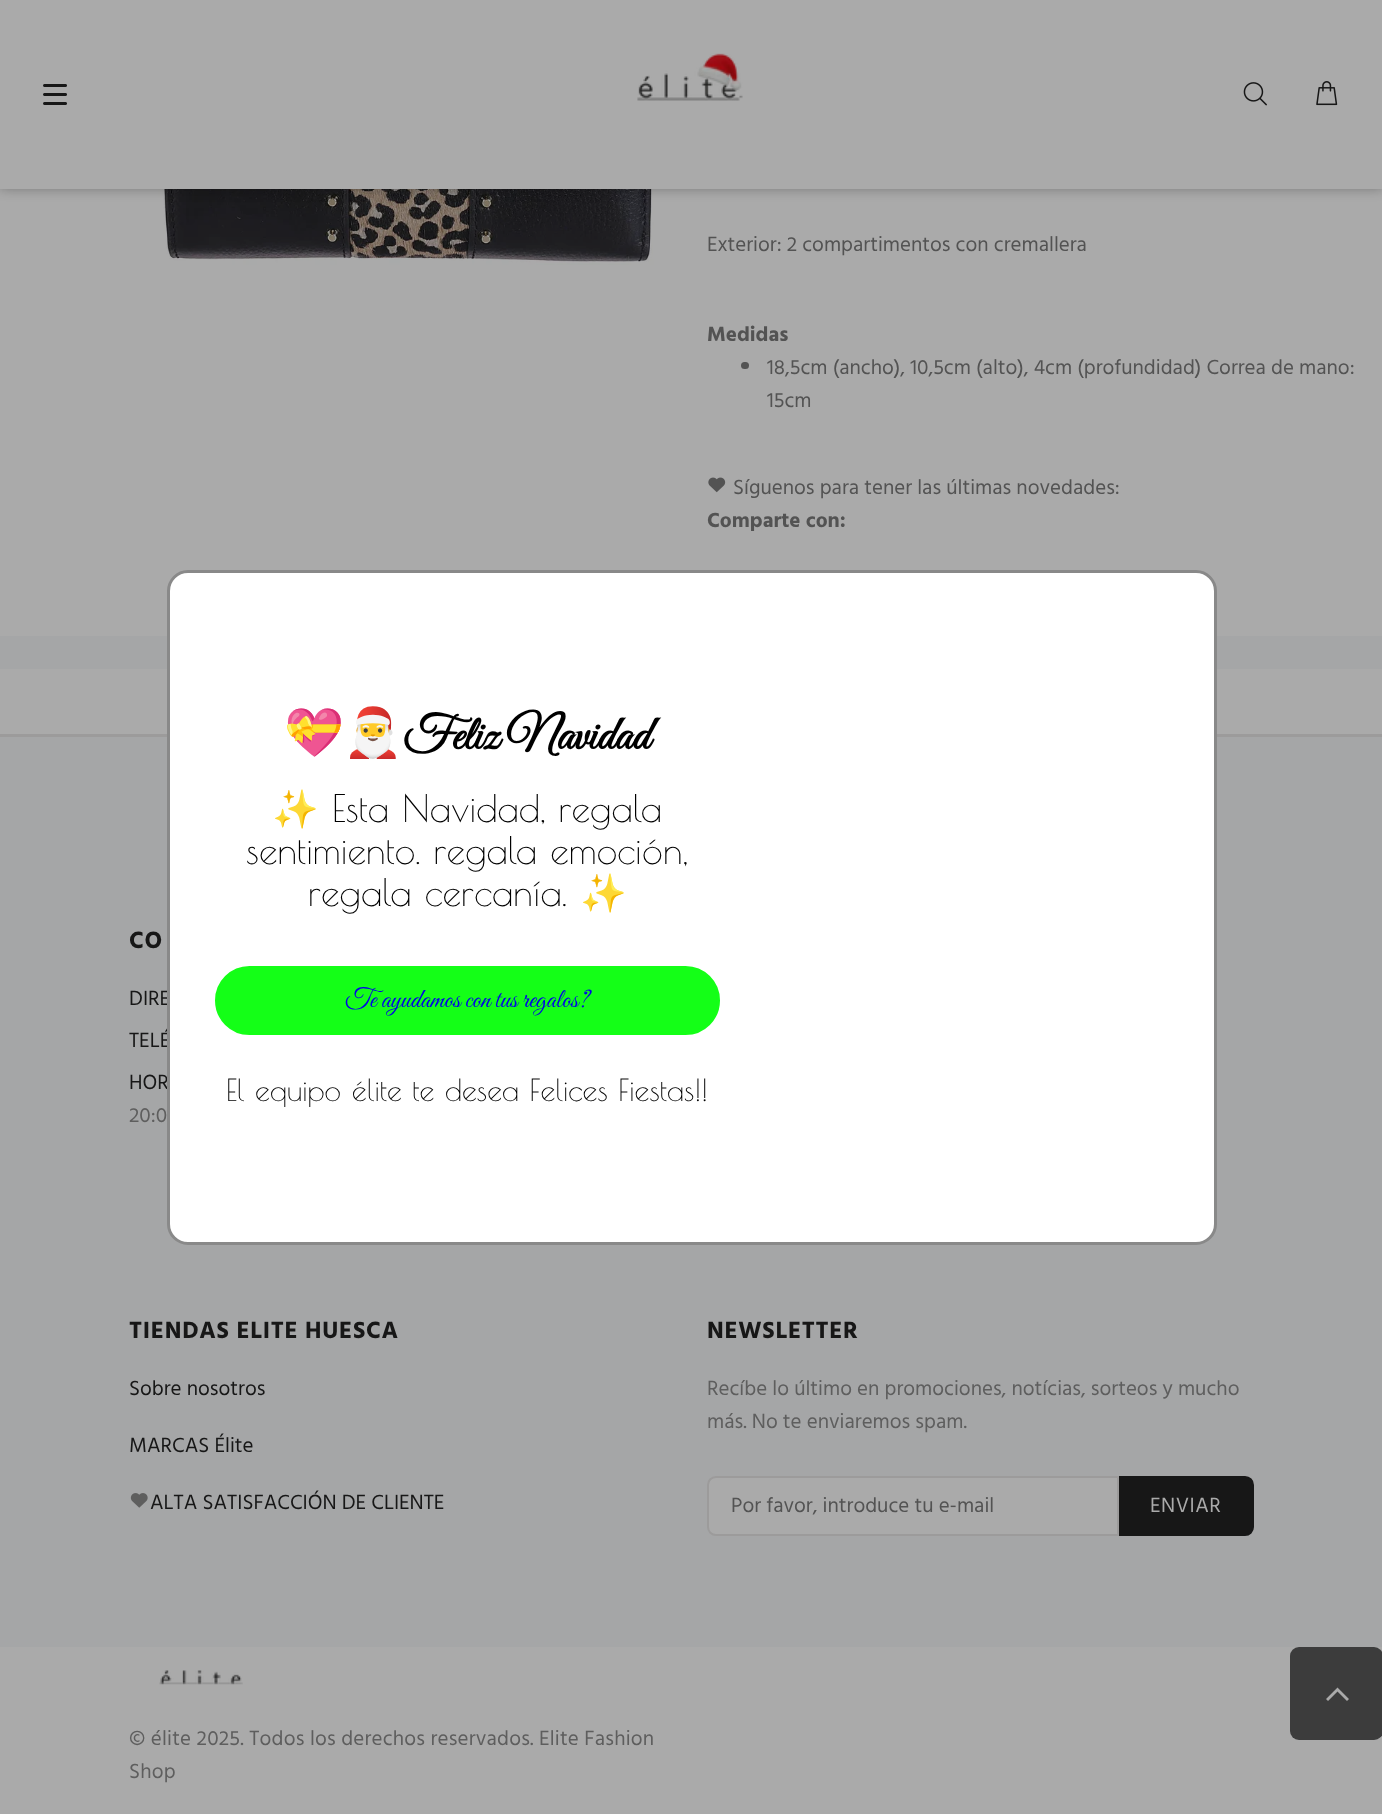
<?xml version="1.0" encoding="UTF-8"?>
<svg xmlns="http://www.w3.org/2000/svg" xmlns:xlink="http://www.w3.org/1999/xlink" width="1382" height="1814">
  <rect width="100%" height="100%" fill="#aaaaaa" />
  <image x="146" y="189" width="509" height="76" xlink:href="image5.png" />
  <rect width="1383" height="189" fill="#070707" fill-opacity="0.3" filter="blur(6px)" />
  <rect width="1382" height="189" fill="#aaaaaa" />
  <image x="43" y="84" width="24" height="21" xlink:href="image1.png" />
  <image x="637" y="53" width="106" height="48" xlink:href="image2.png" />
  <image x="1243" y="82" width="24" height="24" xlink:href="image3.png" />
  <image x="1316" y="81" width="22" height="25" xlink:href="image4.png" />
  <rect x="741" y="362" width="8" height="7" rx="3.5" fill="#535353" />
  <image x="708" y="477" width="18" height="16" xlink:href="image6.png" />
  <rect y="636" width="1382" height="33" fill="#a5a6a7" />
  <rect y="737" width="1382" height="910" fill="#a5a6a7" />
  <rect y="734" width="1382" height="3" fill="#9c9b9b" />
  <image x="130" y="1493" width="18" height="15" xlink:href="image7.png" />
  <path d="M 716 1477 h 402 v 58 h -402 c -4.5 0 -8 -3.5 -8 -8 v -42 c 0 -4.5 3.5 -8 8 -8 z" fill="#aaaaaa" stroke="#9c9b9b" stroke-width="2" />
  <path d="M 1120 1477 h 125 c 4.5 0 8 3.5 8 8 v 42 c 0 4.5 -3.5 8 -8 8 h -125 z" fill="#171717" stroke="#171717" stroke-width="2" />
  <image x="159" y="1670" width="84" height="15" xlink:href="image8.png" />
  <rect x="1290" y="1647" width="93" height="93" rx="9" fill="#3c3c3c" />
  <path d="M 1347 1701 l -9.5 -9.5 l -9.5 9.5 l -2 -2 l 11.5 -11.5 l 11.5 11.5 z" fill="#aaaaaa" />
  <text x="707" y="251" style="font-family: Hind; font-size: 21px; fill: #535353">Exterior: 2 compartimentos con cremallera</text>
  <text x="707" y="341" style="font-family: Hind; font-size: 21px; font-weight: bold; fill: #535353">Medidas</text>
  <text x="767" y="374" style="font-family: Hind; font-size: 21px; fill: #535353">18,5cm (ancho), 10,5cm (alto), 4cm (profundidad) Correa de mano:</text>
  <text x="767" y="407" style="font-family: Hind; font-size: 21px; fill: #535353">15cm</text>
  <text x="733" y="494" style="font-family: Hind; font-size: 21px; fill: #535353">Síguenos para tener las últimas novedades:</text>
  <text x="707" y="527" style="font-family: Hind; font-size: 21px; font-weight: bold; fill: #535353">Comparte con:</text>
  <text x="129" y="948" style="font-family: Hind; font-size: 24px; font-weight: bold; letter-spacing: 0.75px; fill: #171717">CO</text>
  <text x="129" y="1005" style="font-family: Hind; font-size: 21px; fill: #171717">DIRE</text>
  <text x="129" y="1047" style="font-family: Hind; font-size: 21px; fill: #171717">TELÉ</text>
  <text x="129" y="1089" style="font-family: Hind; font-size: 21px; fill: #171717">HOR</text>
  <rect x="168.5" y="571.5" width="1047" height="672" rx="19.5" fill="#ffffff" stroke="#898989" stroke-width="3" />
  <text x="226" y="1101" style="font-family: Poiret One; font-size: 30px; fill: #000000">El equipo élite te desea Felices Fiestas!!</text>
  <rect x="216.5" y="967.5" width="502" height="66" rx="33" fill="#14ff17" stroke="#14ff17" stroke-width="3" />
  <text x="345" y="1007" style="font-family: Great Vibes; font-size: 27px; fill: #0202e8">Te ayudamos con tus regalos?</text>
  <text x="580" y="906" style="font-family: Noto Color Emoji; font-size: 37.5px; fill: #000000">✨</text>
  <text x="308" y="906" style="font-family: Poiret One; font-size: 37.5px; fill: #000000">regala cercanía.</text>
  <text x="246" y="864" style="font-family: Poiret One; font-size: 37.5px; fill: #000000">sentimiento. regala emoción,</text>
  <text x="332" y="822" style="font-family: Poiret One; font-size: 37.5px; fill: #000000">Esta Navidad, regala</text>
  <text x="272" y="822" style="font-family: Noto Color Emoji; font-size: 37.5px; fill: #000000">✨</text>
  <text x="403" y="749" style="font-family: Great Vibes; font-size: 48px; font-weight: bold; fill: #000000">Feliz Navidad</text>
  <text x="284" y="749" style="font-family: Noto Color Emoji; font-size: 48px; fill: #000000">💝🎅</text>
  <text x="129" y="1122" style="font-family: Hind; font-size: 21px; fill: #5e5e5e">20:0</text>
  <text x="129" y="1338" style="font-family: Hind; font-size: 24px; font-weight: bold; letter-spacing: 0.75px; fill: #171717">TIENDAS ELITE HUESCA</text>
  <text x="129" y="1395" style="font-family: Hind; font-size: 21px; fill: #171717">Sobre nosotros</text>
  <text x="129" y="1452" style="font-family: Hind; font-size: 21px; fill: #171717">MARCAS Élite</text>
  <text x="150" y="1509" style="font-family: Hind; font-size: 21px; fill: #171717">ALTA SATISFACCIÓN DE CLIENTE</text>
  <text x="707" y="1338" style="font-family: Hind; font-size: 24px; font-weight: bold; letter-spacing: 0.75px; fill: #171717">NEWSLETTER</text>
  <text x="707" y="1395" style="font-family: Hind; font-size: 21px; fill: #5e5e5e">Recíbe lo último en promociones, notícias, sorteos y mucho</text>
  <text x="707" y="1428" style="font-family: Hind; font-size: 21px; fill: #5e5e5e">más. No te enviaremos spam.</text>
  <text x="731" y="1512" style="font-family: Hind; font-size: 21px; fill: #535353">Por favor, introduce tu e-mail</text>
  <text x="1150" y="1512" style="font-family: Hind; font-size: 21px; letter-spacing: 0.5px; fill: #aaaaaa">ENVIAR</text>
  <text x="129" y="1745" style="font-family: Hind; font-size: 21px; letter-spacing: 0.2px; fill: #5e5e5e">© élite 2025. Todos los derechos reservados. Elite Fashion</text>
  <text x="129" y="1778" style="font-family: Hind; font-size: 21px; letter-spacing: 0.2px; fill: #5e5e5e">Shop</text>
</svg>
